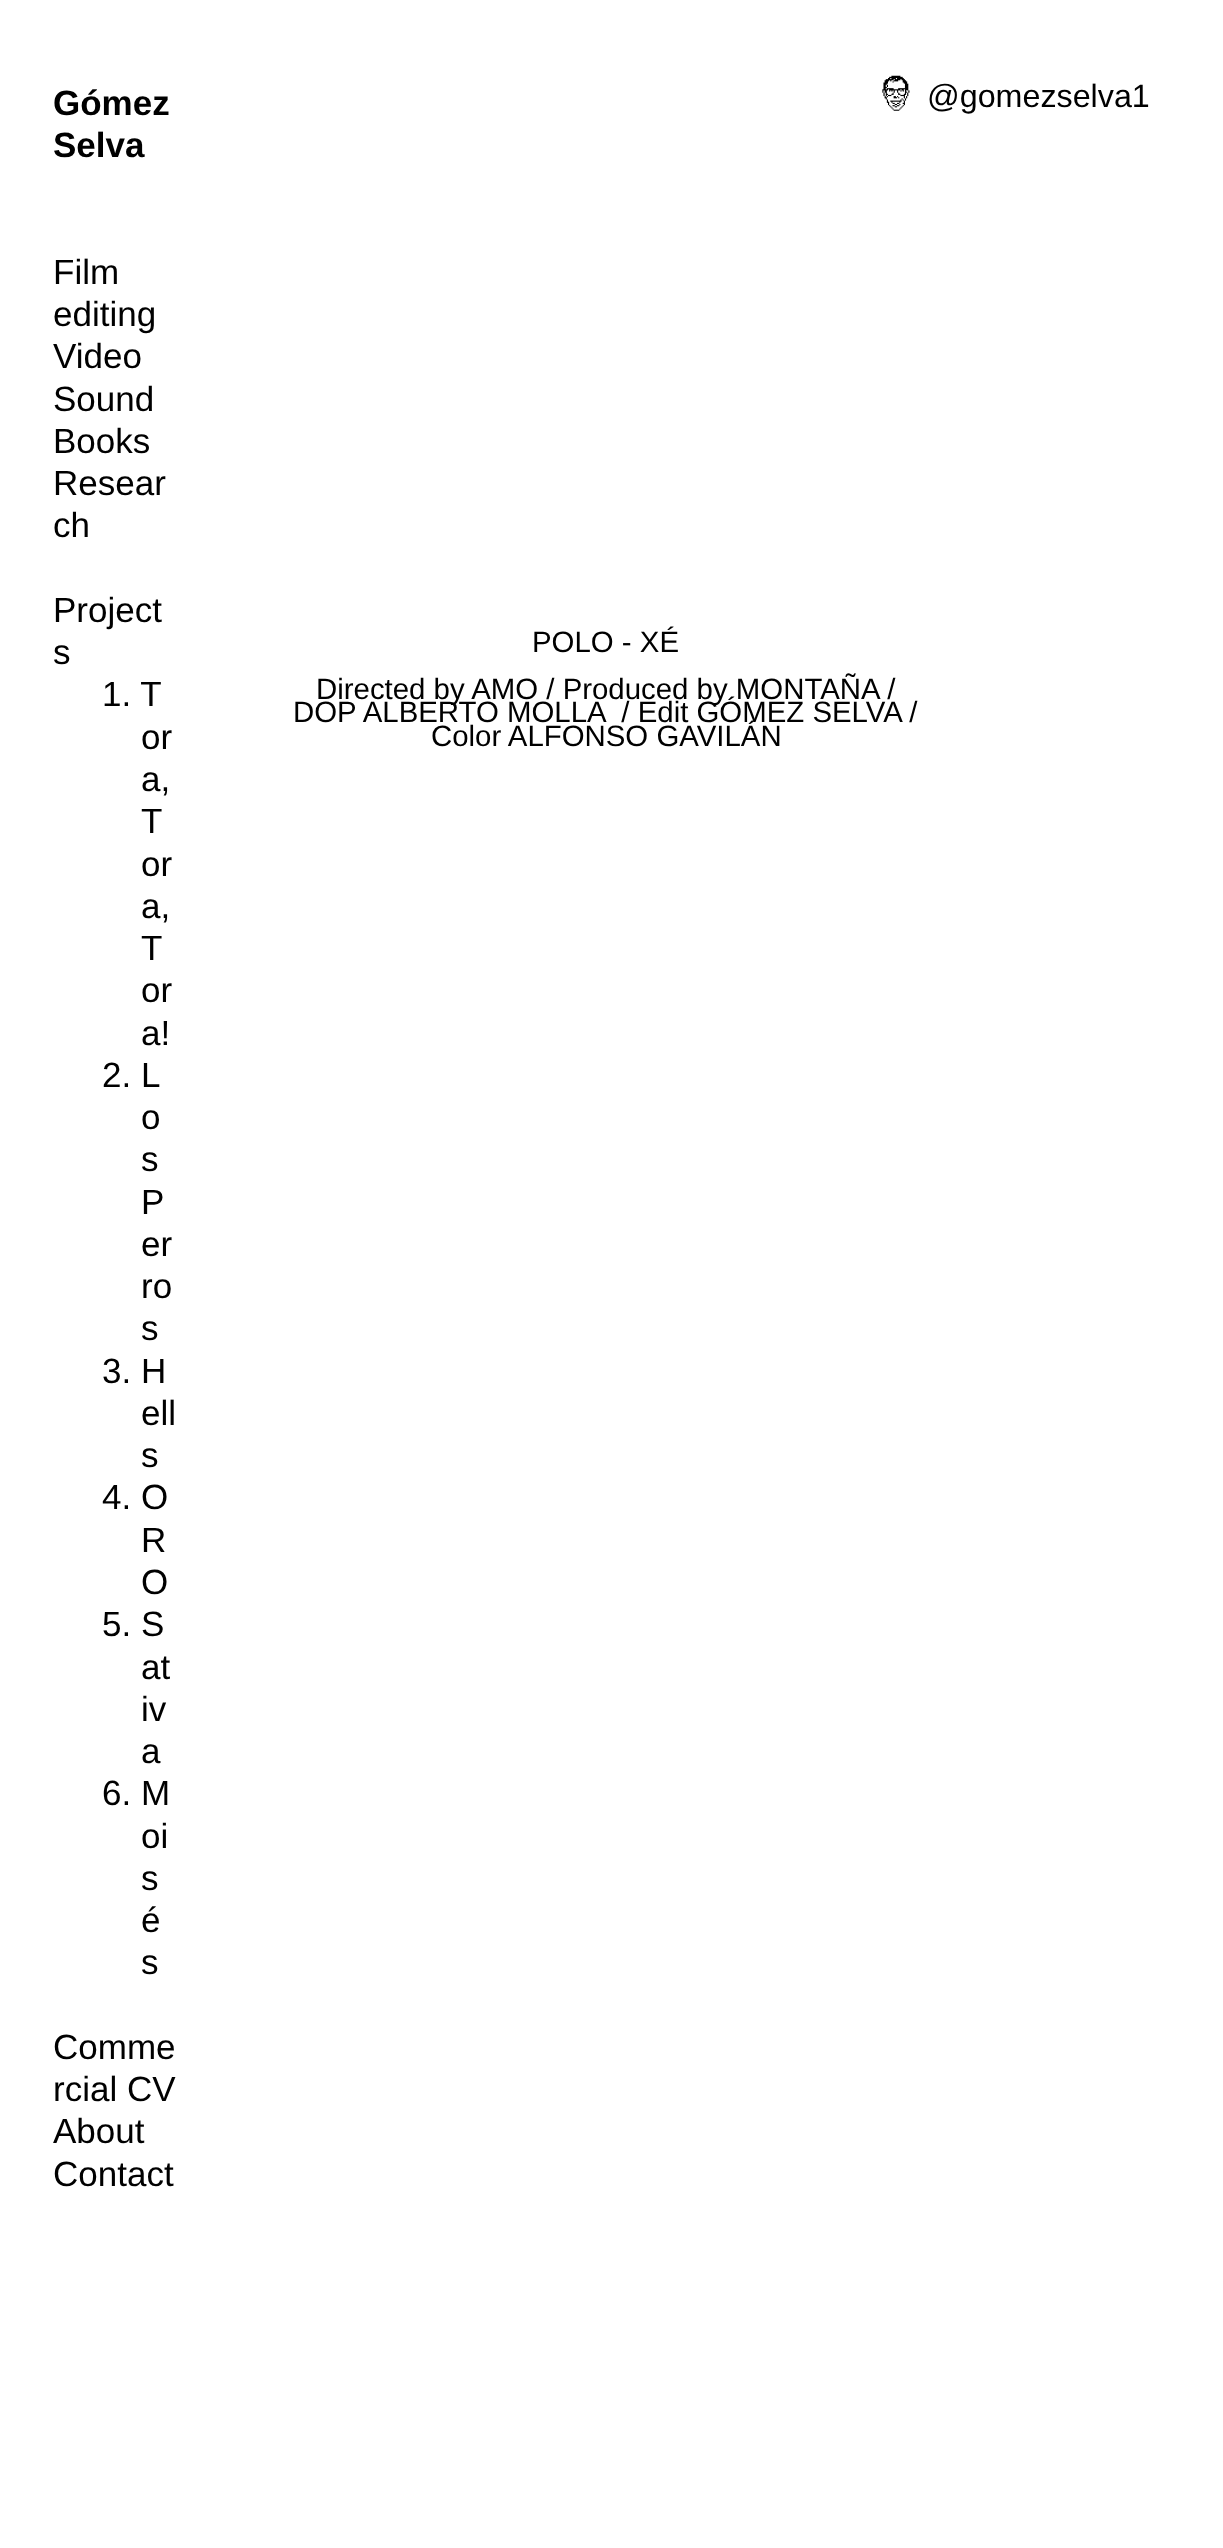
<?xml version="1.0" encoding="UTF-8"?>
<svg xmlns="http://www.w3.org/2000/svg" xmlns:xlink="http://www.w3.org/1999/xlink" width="1223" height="2548">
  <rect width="100%" height="100%" fill="#ffffff" />
  <image x="882" y="75" width="28" height="36" xlink:href="image1.png" />
  <text x="53" y="115" style="font-family: Liberation Sans; font-size: 35px; font-weight: bold; fill: #000000">Gómez</text>
  <text x="53" y="157" style="font-family: Liberation Sans; font-size: 35px; font-weight: bold; fill: #000000">Selva</text>
  <text x="53" y="284" style="font-family: Liberation Sans; font-size: 35px; fill: #000000">Film</text>
  <text x="53" y="326" style="font-family: Liberation Sans; font-size: 35px; fill: #000000">editing</text>
  <text x="53" y="368" style="font-family: Liberation Sans; font-size: 35px; fill: #000000">Video</text>
  <text x="53" y="411" style="font-family: Liberation Sans; font-size: 35px; fill: #000000">Sound</text>
  <text x="53" y="453" style="font-family: Liberation Sans; font-size: 35px; fill: #000000">Books</text>
  <text x="53" y="495" style="font-family: Liberation Sans; font-size: 35px; fill: #000000">Resear</text>
  <text x="53" y="537" style="font-family: Liberation Sans; font-size: 35px; fill: #000000">ch</text>
  <text x="53" y="622" style="font-family: Liberation Sans; font-size: 35px; fill: #000000">Project</text>
  <text x="53" y="664" style="font-family: Liberation Sans; font-size: 35px; fill: #000000">s</text>
  <text x="102" y="706" style="font-family: Liberation Sans; font-size: 35px; fill: #000000">1. T</text>
  <text x="141" y="749" style="font-family: Liberation Sans; font-size: 35px; fill: #000000">or</text>
  <text x="141" y="791" style="font-family: Liberation Sans; font-size: 35px; fill: #000000">a,</text>
  <text x="141" y="833" style="font-family: Liberation Sans; font-size: 35px; fill: #000000">T</text>
  <text x="141" y="876" style="font-family: Liberation Sans; font-size: 35px; fill: #000000">or</text>
  <text x="141" y="918" style="font-family: Liberation Sans; font-size: 35px; fill: #000000">a,</text>
  <text x="141" y="960" style="font-family: Liberation Sans; font-size: 35px; fill: #000000">T</text>
  <text x="141" y="1002" style="font-family: Liberation Sans; font-size: 35px; fill: #000000">or</text>
  <text x="141" y="1045" style="font-family: Liberation Sans; font-size: 35px; fill: #000000">a!</text>
  <text x="102" y="1087" style="font-family: Liberation Sans; font-size: 35px; fill: #000000">2. L</text>
  <text x="141" y="1129" style="font-family: Liberation Sans; font-size: 35px; fill: #000000">o</text>
  <text x="141" y="1171" style="font-family: Liberation Sans; font-size: 35px; fill: #000000">s</text>
  <text x="141" y="1214" style="font-family: Liberation Sans; font-size: 35px; fill: #000000">P</text>
  <text x="141" y="1256" style="font-family: Liberation Sans; font-size: 35px; fill: #000000">er</text>
  <text x="141" y="1298" style="font-family: Liberation Sans; font-size: 35px; fill: #000000">ro</text>
  <text x="141" y="1340" style="font-family: Liberation Sans; font-size: 35px; fill: #000000">s</text>
  <text x="102" y="1383" style="font-family: Liberation Sans; font-size: 35px; fill: #000000">3. H</text>
  <text x="141" y="1425" style="font-family: Liberation Sans; font-size: 35px; fill: #000000">ell</text>
  <text x="141" y="1467" style="font-family: Liberation Sans; font-size: 35px; fill: #000000">s</text>
  <text x="102" y="1509" style="font-family: Liberation Sans; font-size: 35px; fill: #000000">4. O</text>
  <text x="141" y="1552" style="font-family: Liberation Sans; font-size: 35px; fill: #000000">R</text>
  <text x="141" y="1594" style="font-family: Liberation Sans; font-size: 35px; fill: #000000">O</text>
  <text x="102" y="1636" style="font-family: Liberation Sans; font-size: 35px; fill: #000000">5. S</text>
  <text x="141" y="1679" style="font-family: Liberation Sans; font-size: 35px; fill: #000000">at</text>
  <text x="141" y="1721" style="font-family: Liberation Sans; font-size: 35px; fill: #000000">iv</text>
  <text x="141" y="1763" style="font-family: Liberation Sans; font-size: 35px; fill: #000000">a</text>
  <text x="102" y="1805" style="font-family: Liberation Sans; font-size: 35px; fill: #000000">6. M</text>
  <text x="141" y="1848" style="font-family: Liberation Sans; font-size: 35px; fill: #000000">oi</text>
  <text x="141" y="1890" style="font-family: Liberation Sans; font-size: 35px; fill: #000000">s</text>
  <text x="141" y="1932" style="font-family: Liberation Sans; font-size: 35px; fill: #000000">é</text>
  <text x="141" y="1974" style="font-family: Liberation Sans; font-size: 35px; fill: #000000">s</text>
  <text x="53" y="2059" style="font-family: Liberation Sans; font-size: 35px; fill: #000000">Comme</text>
  <text x="53" y="2101" style="font-family: Liberation Sans; font-size: 35px; fill: #000000">rcial CV</text>
  <text x="53" y="2143" style="font-family: Liberation Sans; font-size: 35px; fill: #000000">About</text>
  <text x="53" y="2186" style="font-family: Liberation Sans; font-size: 35px; fill: #000000">Contact</text>
  <text x="927" y="107" style="font-family: Liberation Sans; font-size: 32.25px; fill: #000000">@gomezselva1</text>
  <text x="532" y="652" style="font-family: Liberation Sans; font-size: 29.4px; fill: #000000">POLO - XÉ</text>
  <text x="316" y="699" style="font-family: Liberation Sans; font-size: 29.4px; fill: #000000">Directed by AMO / Produced by MONTAÑA /</text>
  <text x="293" y="722" style="font-family: Liberation Sans; font-size: 29.4px; fill: #000000" xml:space="preserve">DOP ALBERTO MOLLA  / Edit GÓMEZ SELVA /</text>
  <text x="431" y="746" style="font-family: Liberation Sans; font-size: 29.4px; fill: #000000">Color ALFONSO GAVILÁN</text>
</svg>
